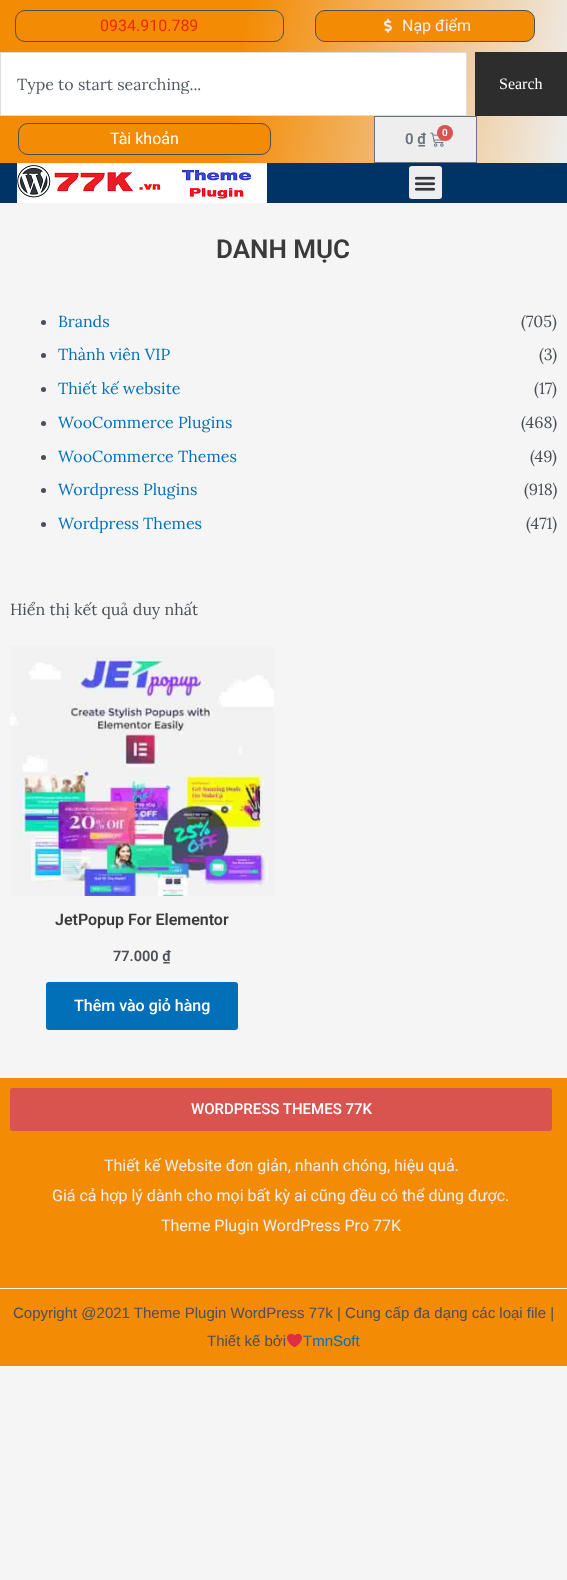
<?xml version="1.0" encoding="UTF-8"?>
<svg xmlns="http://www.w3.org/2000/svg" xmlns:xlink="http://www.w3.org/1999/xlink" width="567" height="1580">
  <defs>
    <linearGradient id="g1" gradientUnits="userSpaceOnUse" x1="-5.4" y1="31" x2="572" y2="132"><stop offset="0.42" stop-color="#f48b05" /><stop offset="1" stop-color="#eeeeee" /></linearGradient>
    <clipPath id="clip1"><rect x="17" y="74" width="421" height="20" /></clipPath>
  </defs>
  <rect width="100%" height="100%" fill="#f5f5f5" />
  <rect width="567" height="163" fill="url(#g1)" />
  <rect x="15.5" y="10.5" width="268" height="31" rx="9.5" fill="none" stroke="#4b4f58" />
  <rect x="315.5" y="10.5" width="219" height="31" rx="9.5" fill="#f48b05" stroke="#4b4f58" />
  <image x="384" y="18" width="8" height="15" xlink:href="image1.png" />
  <rect x="0.5" y="52.5" width="466" height="63" fill="#ffffff" stroke="#dddddd" />
  <rect x="475" y="52" width="92" height="64" fill="#2d2d2d" />
  <rect x="18.5" y="123.5" width="252" height="31" rx="9.5" fill="#f48b05" stroke="#4b4f58" />
  <rect x="374.5" y="116.5" width="102" height="46" fill="#eeeeee" stroke="#69727d" />
  <image x="430" y="132" width="14" height="15" xlink:href="image2.png" />
  <circle cx="445" cy="133" r="8" fill="#d9534f" />
  <rect y="163" width="567" height="40" fill="#003366" />
  <image x="17" y="163" width="250" height="40" xlink:href="image3.png" />
  <rect x="409" y="166" width="33" height="33" rx="3" fill="#eeeeee" />
  <image x="414" y="176" width="22" height="15" xlink:href="image4.png" />
  <circle cx="43.5" cy="322.5" r="2.5" fill="#4b4f58" />
  <circle cx="43.5" cy="355.5" r="2.5" fill="#4b4f58" />
  <circle cx="43.5" cy="389.5" r="2.5" fill="#4b4f58" />
  <circle cx="43.5" cy="423.5" r="2.5" fill="#4b4f58" />
  <circle cx="43.5" cy="457.5" r="2.5" fill="#4b4f58" />
  <circle cx="43.5" cy="490.5" r="2.5" fill="#4b4f58" />
  <circle cx="43.5" cy="524.5" r="2.5" fill="#4b4f58" />
  <image x="10" y="646" width="264" height="250" xlink:href="image5.png" />
  <rect x="46" y="982" width="192" height="48" rx="3" fill="#0170b9" />
  <rect y="1078" width="567" height="210" fill="#f48b05" />
  <rect x="10" y="1088" width="542" height="43" rx="3" fill="#d9534f" />
  <rect y="1289" width="567" height="77" fill="#f48b05" />
  <image x="287" y="1333" width="15" height="15" xlink:href="image6.png" />
  <text x="100" y="31" style="font-family: Roboto; font-size: 16px; fill: #f02900">0934.910.789</text>
  <text x="402" y="31" style="font-family: Roboto; font-size: 16px; fill: #eeeeee">Nạp điểm</text>
  <g clip-path="url(#clip1)">
    <text x="17" y="90" style="font-family: Lora; font-size: 16px; fill: #515962">Type to start searching...</text>
  </g>
  <text x="499" y="89" style="font-family: Liberation Serif; font-size: 16px; fill: #ffffff">Search</text>
  <text x="110" y="144" style="font-family: Roboto; font-size: 16px; fill: #ffffff">Tài khoản</text>
  <text x="405" y="144" style="font-family: Roboto; font-size: 15px; font-weight: 600; fill: #69727d">0 ₫</text>
  <text x="442" y="136" style="font-family: Roboto; font-size: 10px; font-weight: 600; fill: #ffffff">0</text>
  <text x="216" y="258" style="font-family: Roboto; font-size: 26px; font-weight: 600; fill: #3a3a3a">DANH MỤC</text>
  <text x="58" y="327" style="font-family: Lora; font-size: 16px; fill: #0170b9">Brands</text>
  <text x="521" y="327" style="font-family: Lora; font-size: 16px; fill: #4b4f58">(705)</text>
  <text x="58" y="360" style="font-family: Lora; font-size: 16px; fill: #0170b9">Thành viên VIP</text>
  <text x="539" y="360" style="font-family: Lora; font-size: 16px; fill: #4b4f58">(3)</text>
  <text x="58" y="394" style="font-family: Lora; font-size: 16px; fill: #0170b9">Thiết kế website</text>
  <text x="534" y="394" style="font-family: Lora; font-size: 16px; fill: #4b4f58">(17)</text>
  <text x="58" y="428" style="font-family: Lora; font-size: 16px; fill: #0170b9">WooCommerce Plugins</text>
  <text x="521" y="428" style="font-family: Lora; font-size: 16px; fill: #4b4f58">(468)</text>
  <text x="58" y="462" style="font-family: Lora; font-size: 16px; fill: #0170b9">WooCommerce Themes</text>
  <text x="530" y="462" style="font-family: Lora; font-size: 16px; fill: #4b4f58">(49)</text>
  <text x="58" y="495" style="font-family: Lora; font-size: 16px; fill: #0170b9">Wordpress Plugins</text>
  <text x="524" y="495" style="font-family: Lora; font-size: 16px; fill: #4b4f58">(918)</text>
  <text x="58" y="529" style="font-family: Lora; font-size: 16px; fill: #0170b9">Wordpress Themes</text>
  <text x="526" y="529" style="font-family: Lora; font-size: 16px; fill: #4b4f58">(471)</text>
  <text x="10" y="615" style="font-family: Lora; font-size: 16px; fill: #4b4f58">Hiển thị kết quả duy nhất</text>
  <text x="55" y="925" style="font-family: Roboto; font-size: 16px; font-weight: 600; fill: #3a3a3a">JetPopup For Elementor</text>
  <text x="113" y="961" style="font-family: Roboto; font-size: 14.5px; font-weight: 600; fill: #4b4f58">77.000 ₫</text>
  <text x="74" y="1011" style="font-family: Roboto; font-size: 16px; font-weight: 500; fill: #ffffff">Thêm vào giỏ hàng</text>
  <text x="191" y="1114" style="font-family: Roboto; font-size: 15px; font-weight: 500; fill: #ffffff">WORDPRESS THEMES 77K</text>
  <text x="104" y="1171" style="font-family: Roboto; font-size: 16px; fill: #eeeeee">Thiết kế Website đơn giản, nhanh chóng, hiệu quả.</text>
  <text x="52" y="1201" style="font-family: Roboto; font-size: 16px; fill: #eeeeee">Giá cả hợp lý dành cho mọi bất kỳ ai cũng đều có thể dùng được.</text>
  <text x="161" y="1231" style="font-family: Roboto; font-size: 16px; fill: #eeeeee">Theme Plugin WordPress Pro 77K</text>
  <text x="13" y="1318" style="font-family: Liberation Sans; font-size: 15px; fill: #4b4f58">Copyright @2021 Theme Plugin WordPress 77k | Cung cấp đa dạng các loại file |</text>
  <text x="207" y="1346" style="font-family: Liberation Sans; font-size: 15px; fill: #4b4f58">Thiết kế bởi</text>
  <text x="303" y="1346" style="font-family: Liberation Sans; font-size: 15px; fill: #0170b9">TmnSoft</text>
</svg>
